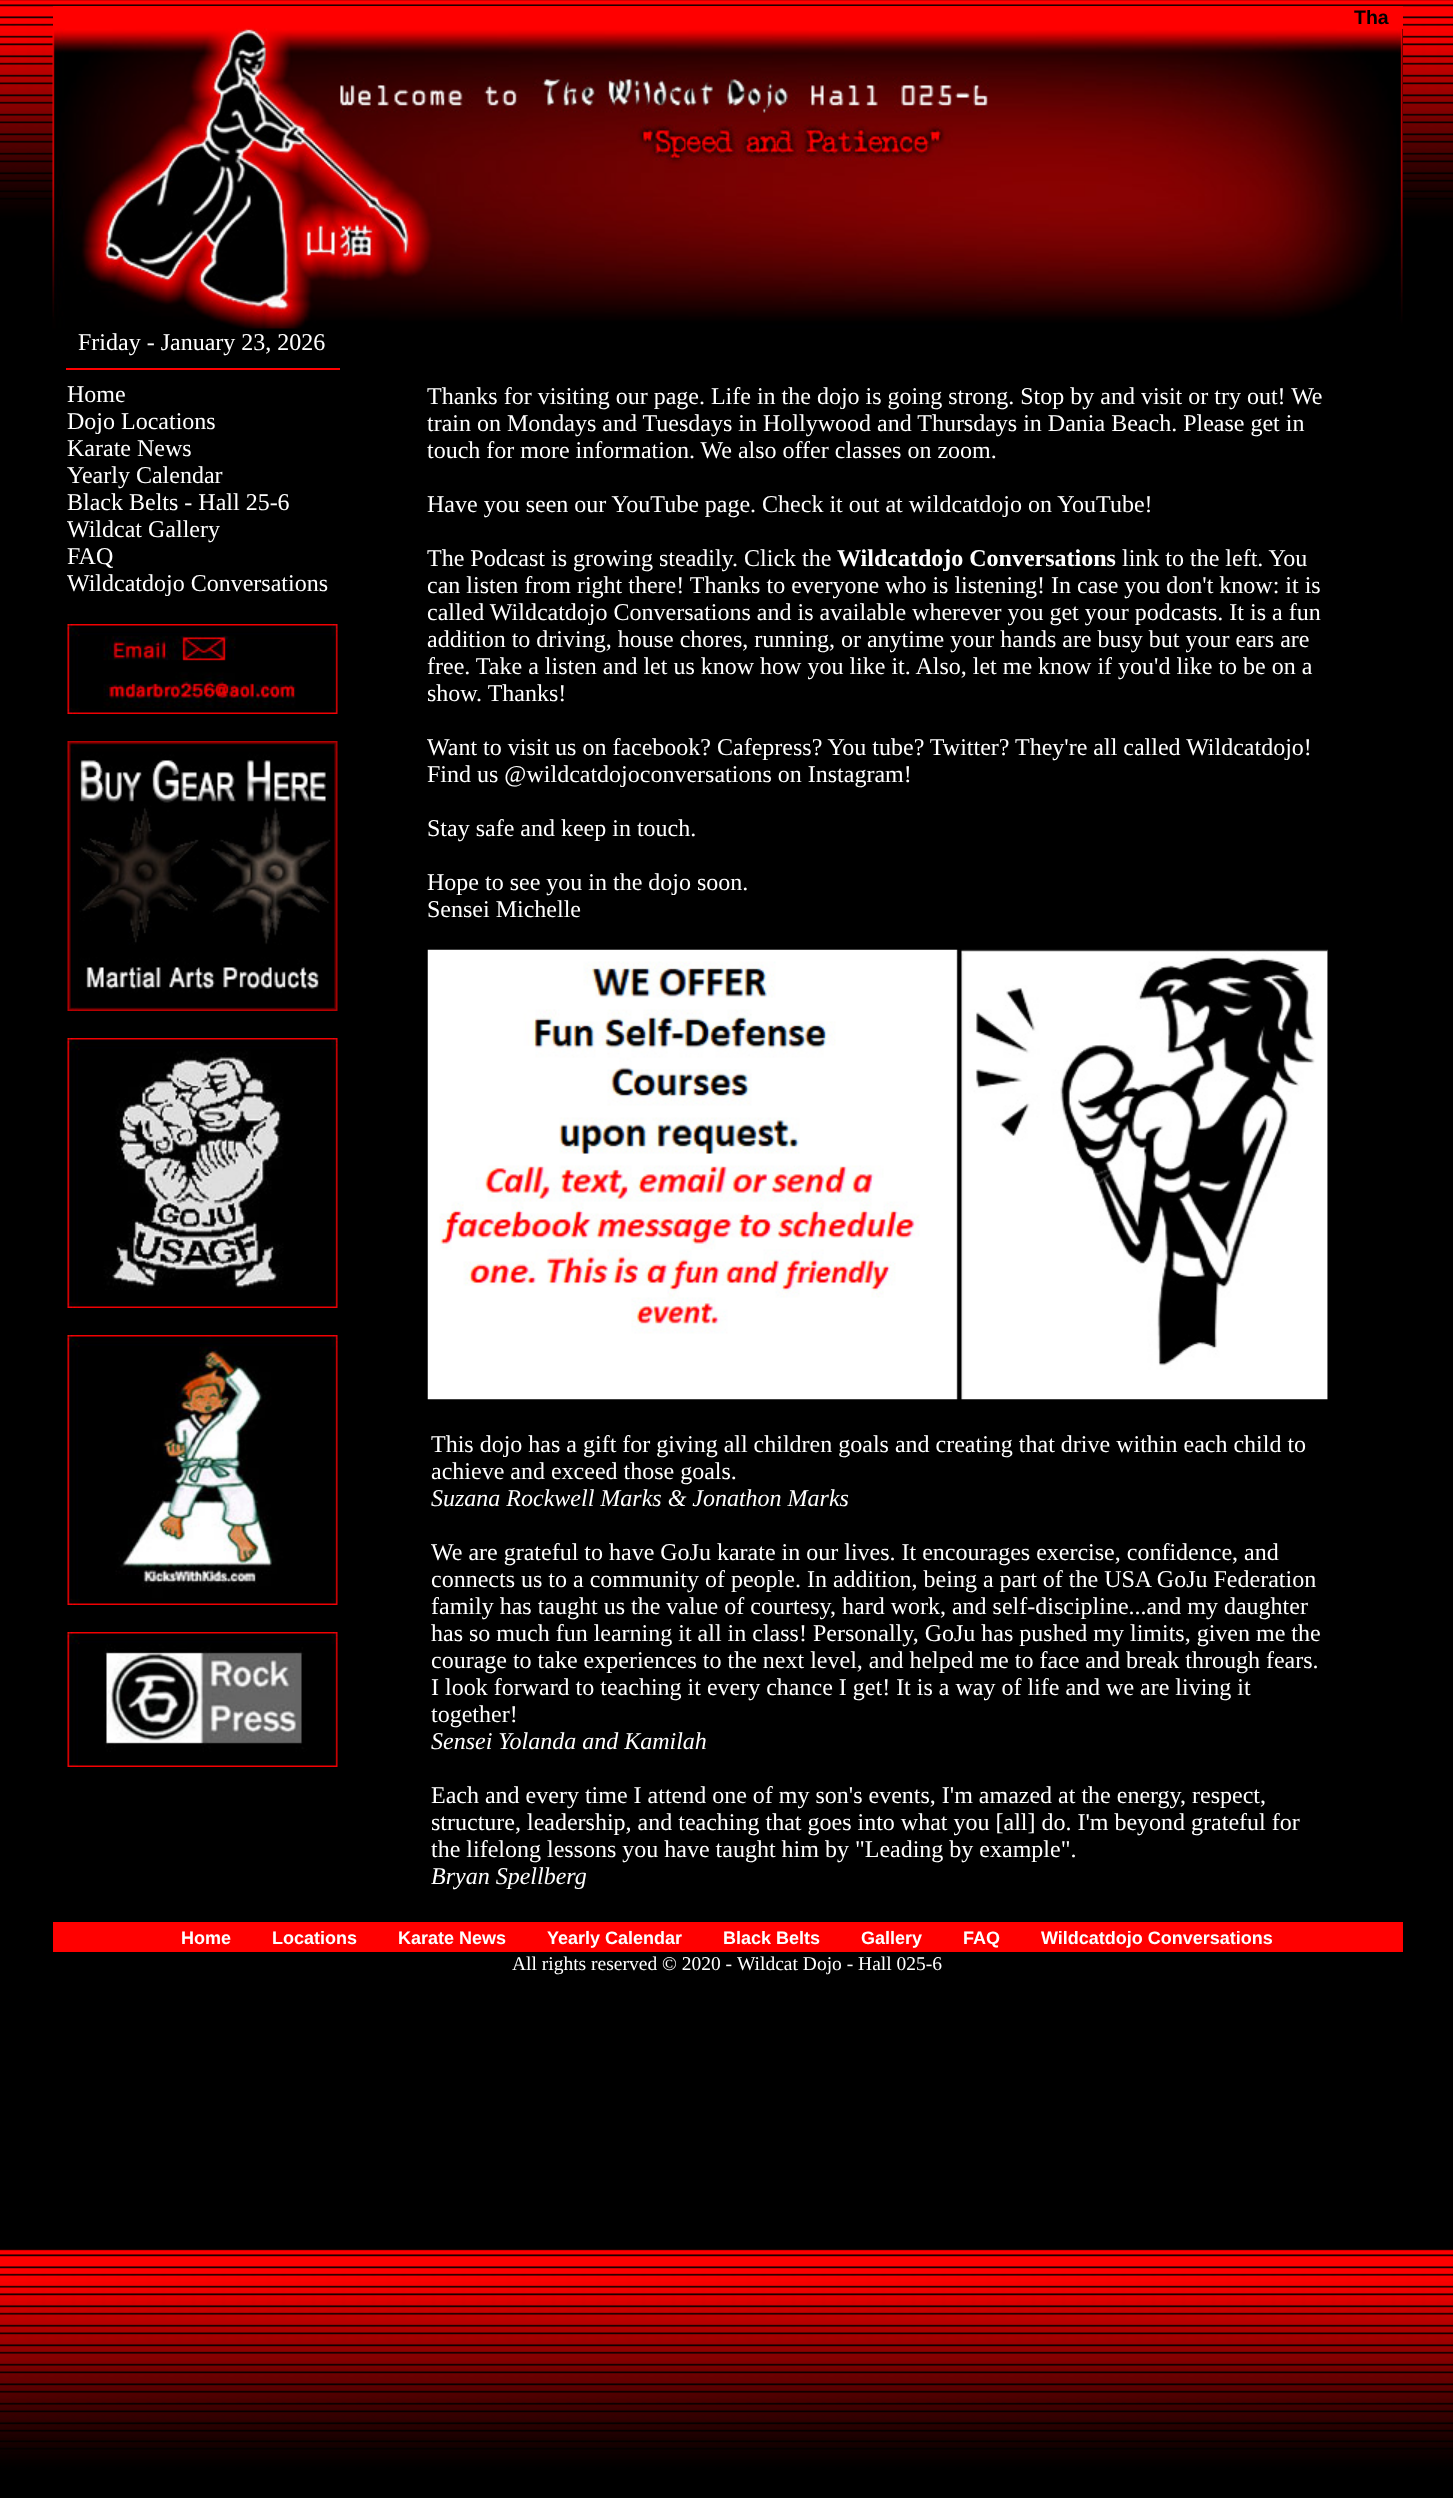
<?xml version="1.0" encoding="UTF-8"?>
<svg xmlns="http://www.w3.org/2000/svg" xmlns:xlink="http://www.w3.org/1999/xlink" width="1453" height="2498">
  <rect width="100%" height="100%" fill="#ffffff" />
  <image x="0" y="0" width="1453" height="2498" xlink:href="image1.png" />
  <rect x="53" y="29" width="1350" height="187" fill="#000000" />
  <rect x="53" y="6" width="1350" height="23" fill="#ff0000" />
  <image x="52" y="28" width="1351" height="301" xlink:href="image2.png" />
  <rect x="66" y="368" width="274" height="2" fill="#ff0000" />
  <image x="67" y="624" width="271" height="90" xlink:href="image3.png" />
  <image x="67" y="741" width="271" height="270" xlink:href="image4.png" />
  <image x="67" y="1038" width="271" height="270" xlink:href="image5.png" />
  <image x="67" y="1335" width="271" height="270" xlink:href="image6.png" />
  <image x="67" y="1632" width="271" height="135" xlink:href="image7.png" />
  <image x="427" y="949" width="901" height="451" xlink:href="image8.png" />
  <image x="1327" y="949" width="1" height="451" xlink:href="image9.png" />
  <rect x="53" y="1922" width="1350" height="30" fill="#ff0000" />
  <text x="1354" y="24" style="font-family: Liberation Sans; font-size: 19.5px; font-weight: bold; fill: #000000">Tha</text>
  <text x="78" y="350" style="font-family: Liberation Serif; font-size: 24px; fill: #ffffff">Friday - January 23, 2026</text>
  <text x="67" y="402" style="font-family: Liberation Serif; font-size: 24px; fill: #ffffff">Home</text>
  <text x="67" y="429" style="font-family: Liberation Serif; font-size: 24px; fill: #ffffff">Dojo Locations</text>
  <text x="67" y="456" style="font-family: Liberation Serif; font-size: 24px; fill: #ffffff">Karate News</text>
  <text x="67" y="483" style="font-family: Liberation Serif; font-size: 24px; fill: #ffffff">Yearly Calendar</text>
  <text x="67" y="510" style="font-family: Liberation Serif; font-size: 24px; fill: #ffffff">Black Belts - Hall 25-6</text>
  <text x="67" y="537" style="font-family: Liberation Serif; font-size: 24px; fill: #ffffff">Wildcat Gallery</text>
  <text x="67" y="564" style="font-family: Liberation Serif; font-size: 24px; fill: #ffffff">FAQ</text>
  <text x="67" y="591" style="font-family: Liberation Serif; font-size: 24px; fill: #ffffff">Wildcatdojo Conversations</text>
  <text x="427" y="404" style="font-family: Liberation Serif; font-size: 24px; fill: #ffffff">Thanks for visiting our page. Life in the dojo is going strong. Stop by and visit or try out! We</text>
  <text x="427" y="431" style="font-family: Liberation Serif; font-size: 24px; fill: #ffffff">train on Mondays and Tuesdays in Hollywood and Thursdays in Dania Beach. Please get in</text>
  <text x="427" y="458" style="font-family: Liberation Serif; font-size: 24px; fill: #ffffff">touch for more information. We also offer classes on zoom.</text>
  <text x="427" y="512" style="font-family: Liberation Serif; font-size: 24px; fill: #ffffff">Have you seen our YouTube page. Check it out at wildcatdojo on YouTube!</text>
  <text x="427" y="566" style="font-family: Liberation Serif; font-size: 24px; fill: #ffffff">The Podcast is growing steadily. Click the</text>
  <text x="837" y="566" style="font-family: Liberation Serif; font-size: 24px; font-weight: bold; fill: #ffffff">Wildcatdojo Conversations</text>
  <text x="1122" y="566" style="font-family: Liberation Serif; font-size: 24px; fill: #ffffff">link to the left. You</text>
  <text x="427" y="593" style="font-family: Liberation Serif; font-size: 24px; fill: #ffffff">can listen from right there! Thanks to everyone who is listening! In case you don't know: it is</text>
  <text x="427" y="620" style="font-family: Liberation Serif; font-size: 24px; fill: #ffffff">called Wildcatdojo Conversations and is available wherever you get your podcasts. It is a fun</text>
  <text x="427" y="647" style="font-family: Liberation Serif; font-size: 24px; fill: #ffffff">addition to driving, house chores, running, or anytime your hands are busy but your ears are</text>
  <text x="427" y="674" style="font-family: Liberation Serif; font-size: 24px; fill: #ffffff">free. Take a listen and let us know how you like it. Also, let me know if you'd like to be on a</text>
  <text x="427" y="701" style="font-family: Liberation Serif; font-size: 24px; fill: #ffffff">show. Thanks!</text>
  <text x="427" y="755" style="font-family: Liberation Serif; font-size: 24px; fill: #ffffff">Want to visit us on facebook? Cafepress? You tube? Twitter? They're all called Wildcatdojo!</text>
  <text x="427" y="782" style="font-family: Liberation Serif; font-size: 24px; fill: #ffffff">Find us @wildcatdojoconversations on Instagram!</text>
  <text x="427" y="836" style="font-family: Liberation Serif; font-size: 24px; fill: #ffffff">Stay safe and keep in touch.</text>
  <text x="427" y="890" style="font-family: Liberation Serif; font-size: 24px; fill: #ffffff">Hope to see you in the dojo soon.</text>
  <text x="427" y="917" style="font-family: Liberation Serif; font-size: 24px; fill: #ffffff">Sensei Michelle</text>
  <text x="431" y="1452" style="font-family: Liberation Serif; font-size: 24px; fill: #ffffff">This dojo has a gift for giving all children goals and creating that drive within each child to</text>
  <text x="431" y="1479" style="font-family: Liberation Serif; font-size: 24px; fill: #ffffff">achieve and exceed those goals.</text>
  <text x="431" y="1506" style="font-family: Liberation Serif; font-size: 24px; font-style: italic; fill: #ffffff">Suzana Rockwell Marks &amp; Jonathon Marks</text>
  <text x="431" y="1560" style="font-family: Liberation Serif; font-size: 24px; fill: #ffffff">We are grateful to have GoJu karate in our lives. It encourages exercise, confidence, and</text>
  <text x="431" y="1587" style="font-family: Liberation Serif; font-size: 24px; fill: #ffffff">connects us to a community of people. In addition, being a part of the USA GoJu Federation</text>
  <text x="431" y="1614" style="font-family: Liberation Serif; font-size: 24px; fill: #ffffff">family has taught us the value of courtesy, hard work, and self-discipline...and my daughter</text>
  <text x="431" y="1641" style="font-family: Liberation Serif; font-size: 24px; fill: #ffffff">has so much fun learning it all in class! Personally, GoJu has pushed my limits, given me the</text>
  <text x="431" y="1668" style="font-family: Liberation Serif; font-size: 24px; fill: #ffffff">courage to take experiences to the next level, and helped me to face and break through fears.</text>
  <text x="431" y="1695" style="font-family: Liberation Serif; font-size: 24px; fill: #ffffff">I look forward to teaching it every chance I get! It is a way of life and we are living it</text>
  <text x="431" y="1722" style="font-family: Liberation Serif; font-size: 24px; fill: #ffffff">together!</text>
  <text x="431" y="1749" style="font-family: Liberation Serif; font-size: 24px; font-style: italic; fill: #ffffff">Sensei Yolanda and Kamilah</text>
  <text x="431" y="1803" style="font-family: Liberation Serif; font-size: 24px; fill: #ffffff">Each and every time I attend one of my son's events, I'm amazed at the energy, respect,</text>
  <text x="431" y="1830" style="font-family: Liberation Serif; font-size: 24px; fill: #ffffff">structure, leadership, and teaching that goes into what you [all] do. I'm beyond grateful for</text>
  <text x="431" y="1857" style="font-family: Liberation Serif; font-size: 24px; fill: #ffffff">the lifelong lessons you have taught him by "Leading by example".</text>
  <text x="431" y="1884" style="font-family: Liberation Serif; font-size: 24px; font-style: italic; fill: #ffffff">Bryan Spellberg</text>
  <text x="181" y="1944" style="font-family: Liberation Sans; font-size: 18px; font-weight: bold; fill: #ffffff">Home</text>
  <text x="272" y="1944" style="font-family: Liberation Sans; font-size: 18px; font-weight: bold; fill: #ffffff">Locations</text>
  <text x="398" y="1944" style="font-family: Liberation Sans; font-size: 18px; font-weight: bold; fill: #ffffff">Karate News</text>
  <text x="547" y="1944" style="font-family: Liberation Sans; font-size: 18px; font-weight: bold; fill: #ffffff">Yearly Calendar</text>
  <text x="723" y="1944" style="font-family: Liberation Sans; font-size: 18px; font-weight: bold; fill: #ffffff">Black Belts</text>
  <text x="861" y="1944" style="font-family: Liberation Sans; font-size: 18px; font-weight: bold; fill: #ffffff">Gallery</text>
  <text x="963" y="1944" style="font-family: Liberation Sans; font-size: 18px; font-weight: bold; fill: #ffffff">FAQ</text>
  <text x="1041" y="1944" style="font-family: Liberation Sans; font-size: 18px; font-weight: bold; fill: #ffffff">Wildcatdojo Conversations</text>
  <text x="512" y="1970" style="font-family: Liberation Serif; font-size: 19.5px; fill: #ffffff">All rights reserved © 2020 -</text>
  <text x="737" y="1970" style="font-family: Liberation Serif; font-size: 19.5px; fill: #ffffff">Wildcat Dojo - Hall 025-6</text>
</svg>
